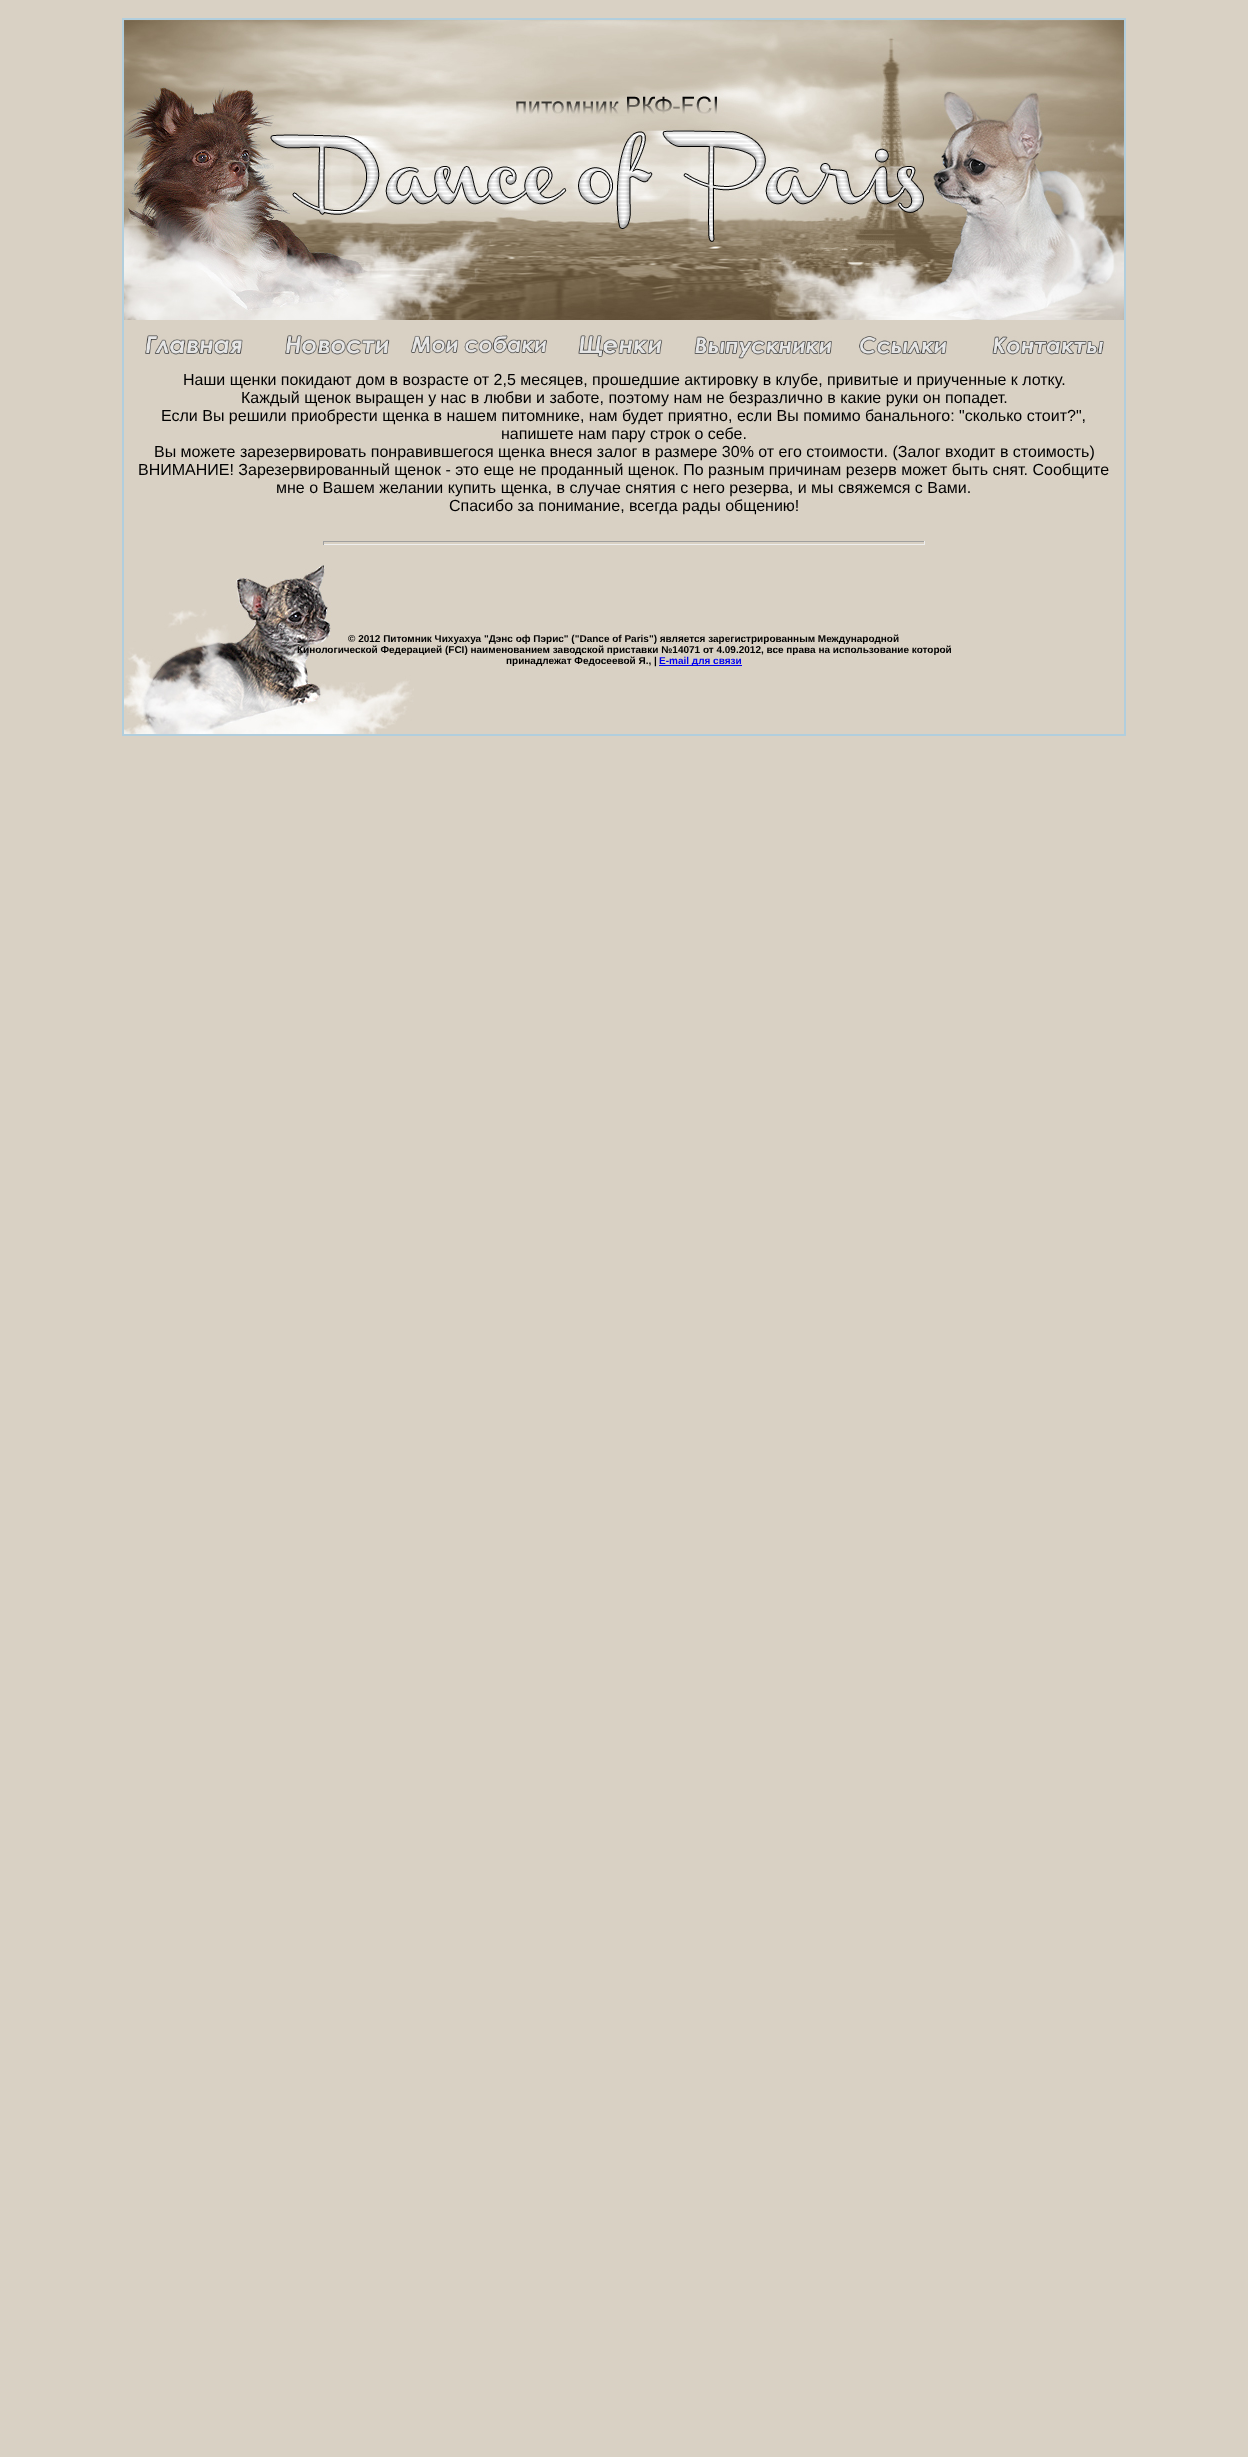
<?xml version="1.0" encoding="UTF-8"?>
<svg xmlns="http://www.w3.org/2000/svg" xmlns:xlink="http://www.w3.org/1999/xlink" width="1248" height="2457">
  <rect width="100%" height="100%" fill="#d9d1c4" />
  <rect x="122.5" y="18.5" width="1003" height="717" fill="none" stroke="#b1cedd" />
  <rect x="123.5" y="19.5" width="1001" height="715" fill="none" stroke="#b1cedd" />
  <image x="124" y="20" width="1000" height="300" xlink:href="image1.png" />
  <image x="145" y="335" width="98" height="20" xlink:href="image2.png" />
  <image x="285" y="335" width="105" height="20" xlink:href="image3.png" />
  <image x="410" y="335" width="137" height="19" xlink:href="image4.png" />
  <image x="578" y="335" width="85" height="22" xlink:href="image5.png" />
  <image x="694" y="336" width="138" height="23" xlink:href="image6.png" />
  <image x="859" y="336" width="88" height="19" xlink:href="image7.png" />
  <image x="992" y="336" width="112" height="19" xlink:href="image8.png" />
  <rect x="323" y="541" width="602" height="1" fill="#9f9f9f" />
  <rect x="924" y="541" width="1" height="4" fill="#eeeeee" />
  <rect x="323" y="544" width="602" height="1" fill="#eeeeee" />
  <rect x="323" y="541" width="1" height="4" fill="#9f9f9f" />
  <image x="124" y="565" width="290" height="169" xlink:href="image9.png" />
  <rect x="659" y="665" width="83" height="1" fill="#0000ee" />
  <text x="183" y="385" style="font-family: Liberation Sans; font-size: 16px; fill: #000000">Наши щенки покидают дом в возрасте от 2,5 месяцев, прошедшие актировку в клубе, привитые и приученные к лотку.</text>
  <text x="241" y="403" style="font-family: Liberation Sans; font-size: 16px; fill: #000000">Каждый щенок выращен у нас в любви и заботе, поэтому нам не безразлично в какие руки он попадет.</text>
  <text x="161" y="421" style="font-family: Liberation Sans; font-size: 16px; fill: #000000">Если Вы решили приобрести щенка в нашем питомнике, нам будет приятно, если Вы помимо банального: "сколько стоит?",</text>
  <text x="501" y="439" style="font-family: Liberation Sans; font-size: 16px; fill: #000000">напишете нам пару строк о себе.</text>
  <text x="154" y="457" style="font-family: Liberation Sans; font-size: 16px; fill: #000000">Вы можете зарезервировать понравившегося щенка внеся залог в размере 30% от его стоимости. (Залог входит в стоимость)</text>
  <text x="138" y="475" style="font-family: Liberation Sans; font-size: 16px; fill: #000000">ВНИМАНИЕ! Зарезервированный щенок - это еще не проданный щенок. По разным причинам резерв может быть снят. Сообщите</text>
  <text x="276" y="493" style="font-family: Liberation Sans; font-size: 16px; fill: #000000">мне о Вашем желании купить щенка, в случае снятия с него резерва, и мы свяжемся с Вами.</text>
  <text x="449" y="511" style="font-family: Liberation Sans; font-size: 16px; fill: #000000">Спасибо за понимание, всегда рады общению!</text>
  <text x="348" y="642" style="font-family: Liberation Sans; font-size: 10px; font-weight: bold; fill: #000000">© 2012 Питомник Чихуахуа "Дэнс оф Пэрис" ("Dance of Paris") является зарегистрированным Международной</text>
  <text x="297" y="653" style="font-family: Liberation Sans; font-size: 10px; font-weight: bold; fill: #000000">Кинологической Федерацией (FCI) наименованием заводской приставки №14071 от 4.09.2012, все права на использование которой</text>
  <text x="506" y="664" style="font-family: Liberation Sans; font-size: 10px; font-weight: bold; fill: #000000">принадлежат Федосеевой Я., |</text>
  <text x="659" y="664" style="font-family: Liberation Sans; font-size: 10px; font-weight: bold; fill: #0000ee">Е-mail для связи</text>
</svg>
